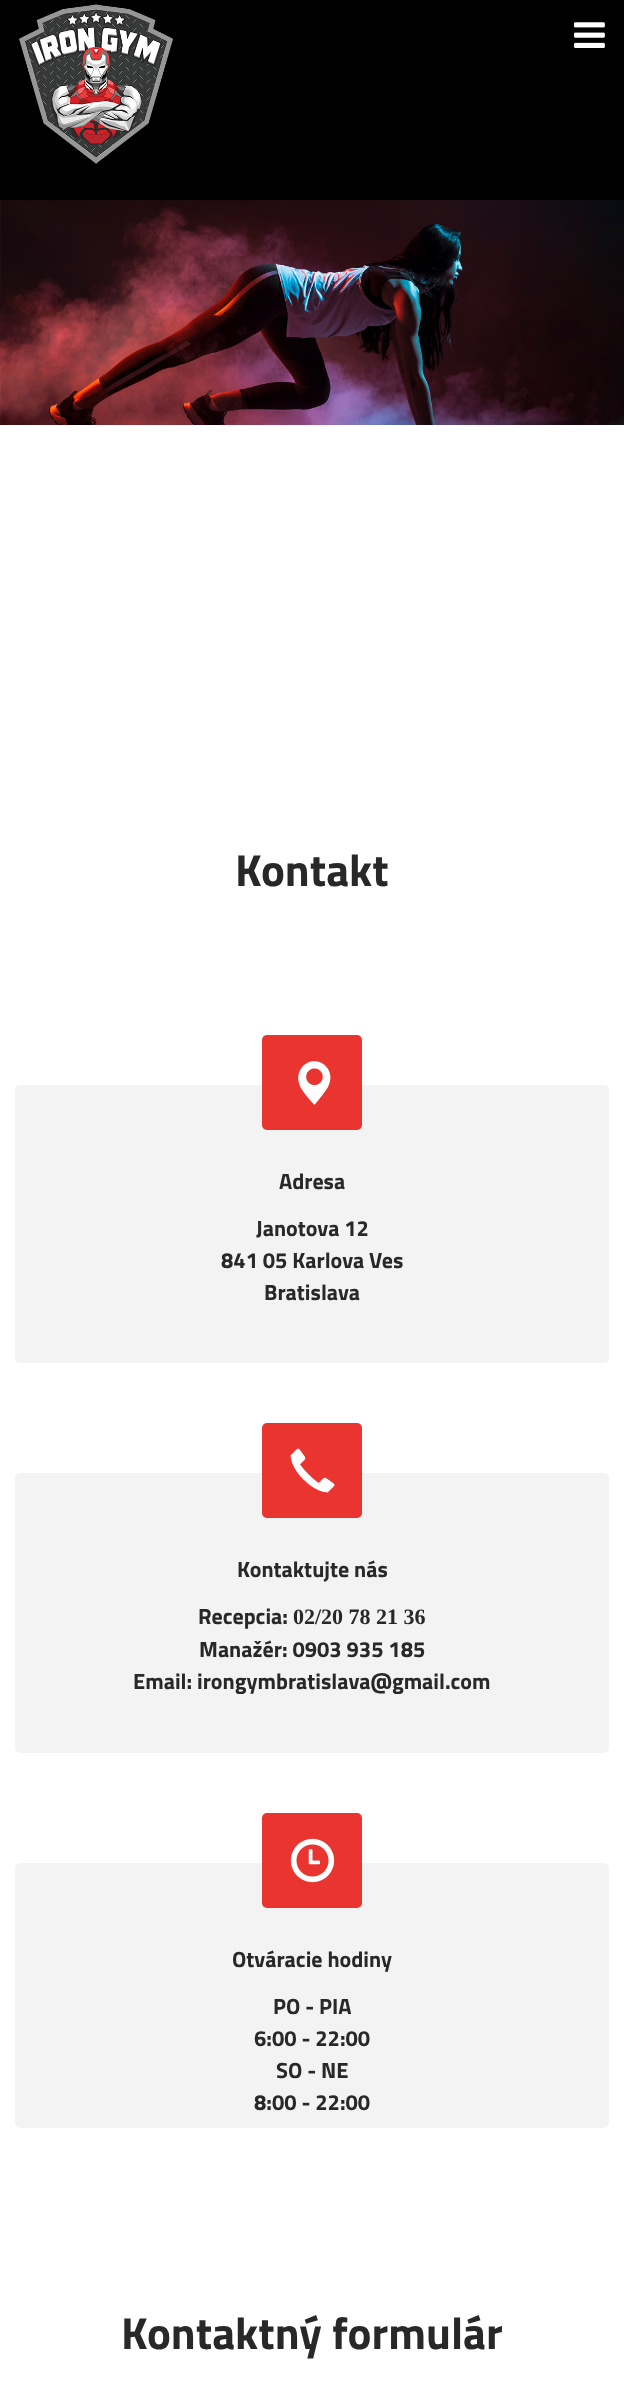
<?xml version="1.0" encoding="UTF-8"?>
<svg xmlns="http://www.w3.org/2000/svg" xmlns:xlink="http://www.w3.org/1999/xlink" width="624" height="2383">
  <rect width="100%" height="100%" fill="#ffffff" />
  <rect width="624" height="200" fill="#000000" />
  <image x="19" y="4" width="154" height="160" xlink:href="image1.png" />
  <image x="574" y="22" width="31" height="26" xlink:href="image2.png" />
  <image x="0" y="200" width="624" height="225" xlink:href="image3.png" />
  <rect x="15" y="1085" width="594" height="278" rx="5" fill="#f3f3f3" />
  <rect x="262" y="1035" width="100" height="95" rx="5" fill="#e93430" />
  <image x="298" y="1061" width="33" height="44" xlink:href="image4.png" />
  <rect x="15" y="1473" width="594" height="280" rx="5" fill="#f3f3f3" />
  <rect x="262" y="1423" width="100" height="95" rx="5" fill="#e93430" />
  <image x="290" y="1448" width="45" height="45" xlink:href="image5.png" />
  <rect x="15" y="1863" width="594" height="265" rx="5" fill="#f3f3f3" />
  <rect x="262" y="1813" width="100" height="95" rx="5" fill="#e93430" />
  <image x="290" y="1838" width="45" height="45" xlink:href="image6.png" />
  <text x="235" y="886" style="font-family: Titillium Web; font-size: 45px; font-weight: bold; fill: #282828">Kontakt</text>
  <text x="279" y="1189" style="font-family: Titillium Web; font-size: 22px; font-weight: bold; fill: #282828">Adresa</text>
  <text x="256" y="1236" style="font-family: Titillium Web; font-size: 22px; font-weight: bold; fill: #282828">Janotova 12</text>
  <text x="221" y="1268" style="font-family: Titillium Web; font-size: 22px; font-weight: bold; fill: #282828">841 05 Karlova Ves</text>
  <text x="264" y="1300" style="font-family: Titillium Web; font-size: 22px; font-weight: bold; fill: #282828">Bratislava</text>
  <text x="237" y="1577" style="font-family: Titillium Web; font-size: 22px; font-weight: bold; fill: #282828">Kontaktujte nás</text>
  <text x="198" y="1624" style="font-family: Titillium Web; font-size: 22px; font-weight: bold; fill: #282828">Recepcia:</text>
  <text x="293" y="1624" style="font-family: Liberation Serif; font-size: 22px; font-weight: bold; fill: #282828">02/20 78 21 36</text>
  <text x="199" y="1657" style="font-family: Titillium Web; font-size: 22px; font-weight: bold; fill: #282828">Manažér: 0903 935 185</text>
  <text x="133" y="1689" style="font-family: Titillium Web; font-size: 22px; font-weight: bold; fill: #282828">Email: irongymbratislava@gmail.com</text>
  <text x="232" y="1967" style="font-family: Titillium Web; font-size: 22px; font-weight: bold; fill: #282828">Otváracie hodiny</text>
  <text x="273" y="2014" style="font-family: Titillium Web; font-size: 22px; font-weight: bold; fill: #282828">PO - PIA</text>
  <text x="254" y="2046" style="font-family: Titillium Web; font-size: 22px; font-weight: bold; fill: #282828">6:00 - 22:00</text>
  <text x="276" y="2078" style="font-family: Titillium Web; font-size: 22px; font-weight: bold; fill: #282828">SO - NE</text>
  <text x="254" y="2110" style="font-family: Titillium Web; font-size: 22px; font-weight: bold; fill: #282828">8:00 - 22:00</text>
  <text x="121" y="2349" style="font-family: Titillium Web; font-size: 45px; font-weight: bold; fill: #282828">Kontaktný formulár</text>
</svg>
